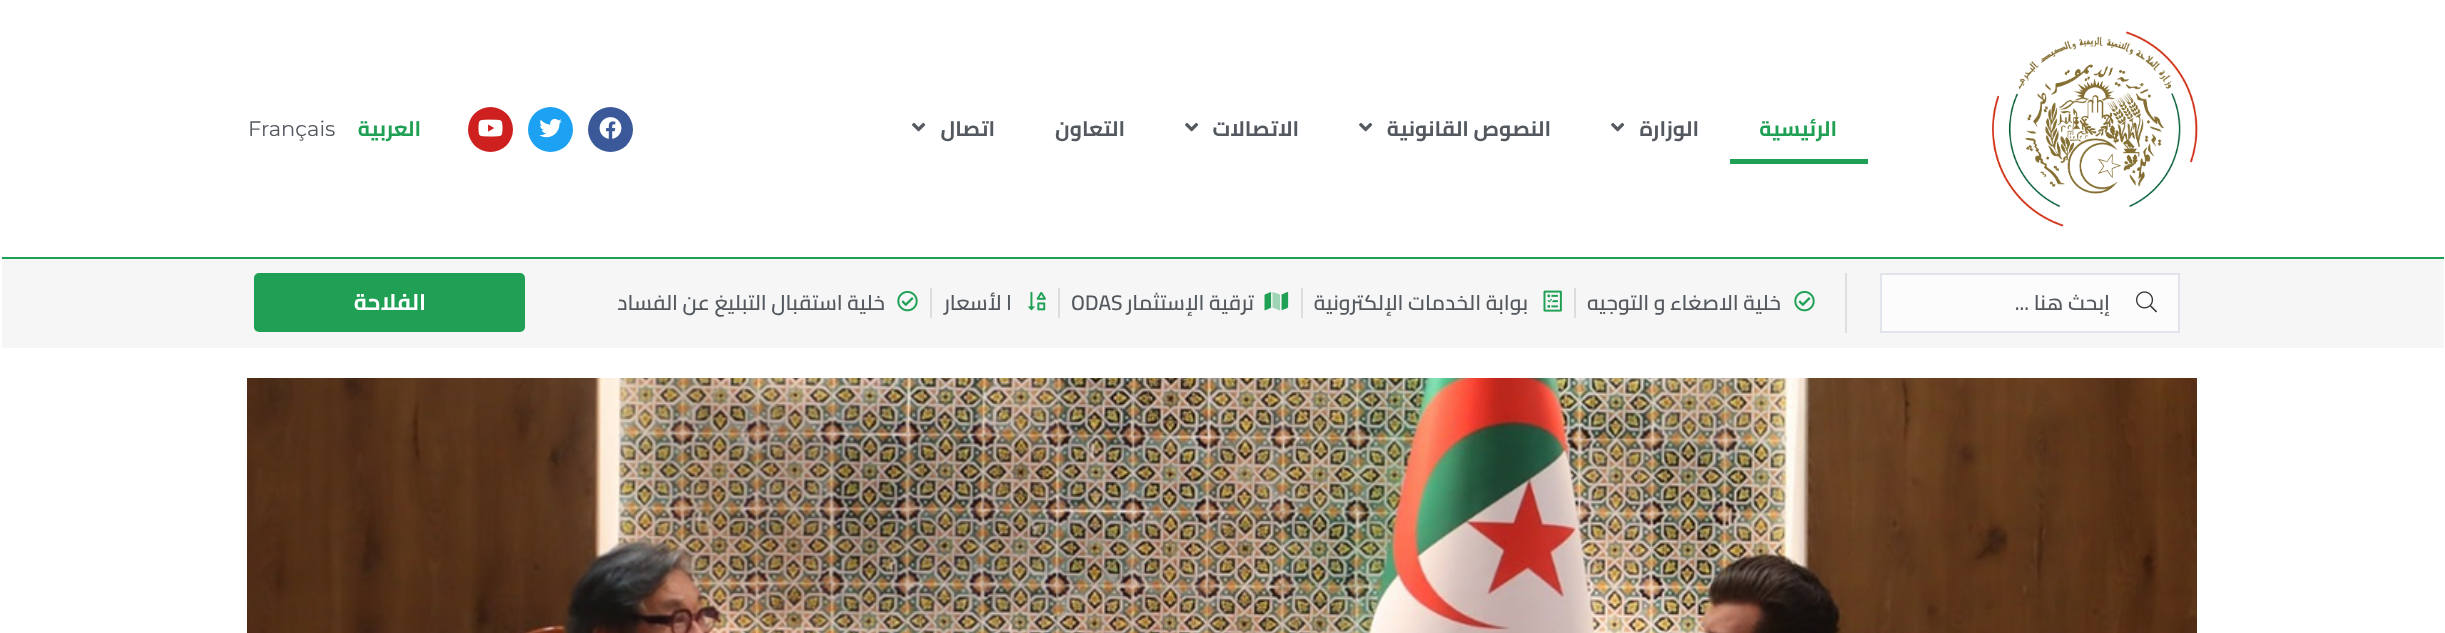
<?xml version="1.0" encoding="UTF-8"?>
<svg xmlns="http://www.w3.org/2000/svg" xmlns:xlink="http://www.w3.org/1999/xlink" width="2445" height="633">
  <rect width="100%" height="100%" fill="#ffffff" />
  <rect x="2" y="257" width="2442" height="2" fill="#1fa055" />
  <image x="1992" y="31" width="206" height="196" xlink:href="image1.png" />
  <rect x="1730" y="159" width="138" height="5" fill="#1fa055" />
  <image x="1611" y="122" width="14" height="10" xlink:href="image2.png" />
  <image x="1359" y="122" width="14" height="10" xlink:href="image2.png" />
  <image x="1185" y="122" width="14" height="10" xlink:href="image2.png" />
  <image x="912" y="122" width="14" height="10" xlink:href="image2.png" />
  <circle cx="610.5" cy="129.5" r="22.5" fill="#3b5998" />
  <image x="599" y="117" width="23" height="22" xlink:href="image3.png" />
  <circle cx="550.5" cy="129.5" r="22.5" fill="#1da1f2" />
  <image x="539" y="118" width="23" height="20" xlink:href="image4.png" />
  <circle cx="490.5" cy="129.5" r="22.5" fill="#cd201f" />
  <image x="478" y="119" width="25" height="18" xlink:href="image5.png" />
  <rect x="2" y="259" width="2442" height="89" fill="#f6f6f6" />
  <rect x="1881" y="274" width="298" height="58" fill="#fcfcfc" stroke="#e1e5eb" stroke-width="2" />
  <image x="2136" y="291" width="21" height="22" xlink:href="image6.png" />
  <rect x="1845" y="273" width="2" height="60" fill="#dededf" />
  <image x="1794" y="291" width="21" height="21" xlink:href="image7.png" />
  <rect x="1574" y="288" width="2" height="30" fill="#dddddd" />
  <image x="1543" y="290" width="19" height="22" xlink:href="image8.png" />
  <rect x="1301" y="288" width="2" height="30" fill="#dddddd" />
  <image x="1264" y="292" width="25" height="19" xlink:href="image9.png" />
  <path d="M 1272.5 292 l 7.5 2.5 v 16 l -7.5 -3 z" fill="#a0d4b6" />
  <rect x="1058" y="288" width="2" height="30" fill="#dddddd" />
  <image x="1028" y="291" width="18" height="20" xlink:href="image10.png" />
  <rect x="930" y="288" width="2" height="30" fill="#dddddd" />
  <image x="897" y="291" width="21" height="21" xlink:href="image7.png" />
  <rect x="254" y="273" width="271" height="59" rx="5" fill="#1fa055" />
  <image x="247" y="378" width="1950" height="255" xlink:href="image11.png" />
  <text x="1837" y="136" style="font-family: Cairo; font-size: 21px; font-weight: bold; direction: rtl; fill: #1fa055">الرئيسية</text>
  <text x="1699" y="136" style="font-family: Cairo; font-size: 21px; font-weight: bold; direction: rtl; fill: #54595f">الوزارة</text>
  <text x="1551" y="136" style="font-family: Cairo; font-size: 21px; font-weight: bold; direction: rtl; fill: #54595f">النصوص القانونية</text>
  <text x="1299" y="136" style="font-family: Cairo; font-size: 21px; font-weight: bold; direction: rtl; fill: #54595f">الاتصالات</text>
  <text x="1125" y="136" style="font-family: Cairo; font-size: 21px; font-weight: bold; direction: rtl; fill: #54595f">التعاون</text>
  <text x="995" y="136" style="font-family: Cairo; font-size: 21px; font-weight: bold; direction: rtl; fill: #54595f">اتصال</text>
  <text x="421" y="136" style="font-family: Cairo; font-size: 21px; font-weight: bold; direction: rtl; fill: #1fa055">العربية</text>
  <text x="248" y="136" style="font-family: Montserrat; font-size: 21px; fill: #54595f">Français</text>
  <text x="2110" y="310" style="font-family: Cairo; font-size: 21px; font-weight: 600; direction: rtl; fill: #54595f">إبحث هنا ...</text>
  <text x="1781" y="310" style="font-family: Cairo; font-size: 21px; font-weight: 600; direction: rtl; fill: #54595f">خلية الاصغاء و التوجيه</text>
  <text x="1528" y="310" style="font-family: Cairo; font-size: 21px; font-weight: 600; direction: rtl; fill: #54595f">بوابة الخدمات الإلكترونية</text>
  <text x="1254" y="310" style="font-family: Cairo; font-size: 21px; font-weight: 600; direction: rtl; fill: #54595f">ترقية الإستثمار</text>
  <text x="1071" y="310" style="font-family: Cairo; font-size: 21px; font-weight: 600; fill: #54595f">ODAS</text>
  <text x="1012" y="310" style="font-family: Cairo; font-size: 21px; font-weight: 600; direction: rtl; fill: #54595f">ا لأسعار</text>
  <text x="885" y="310" style="font-family: Cairo; font-size: 21px; font-weight: 600; direction: rtl; fill: #54595f">خلية استقبال التبليغ عن الفساد</text>
  <text x="426" y="310" style="font-family: Cairo; font-size: 22.5px; font-weight: bold; direction: rtl; fill: #ffffff">الفلاحة</text>
</svg>
